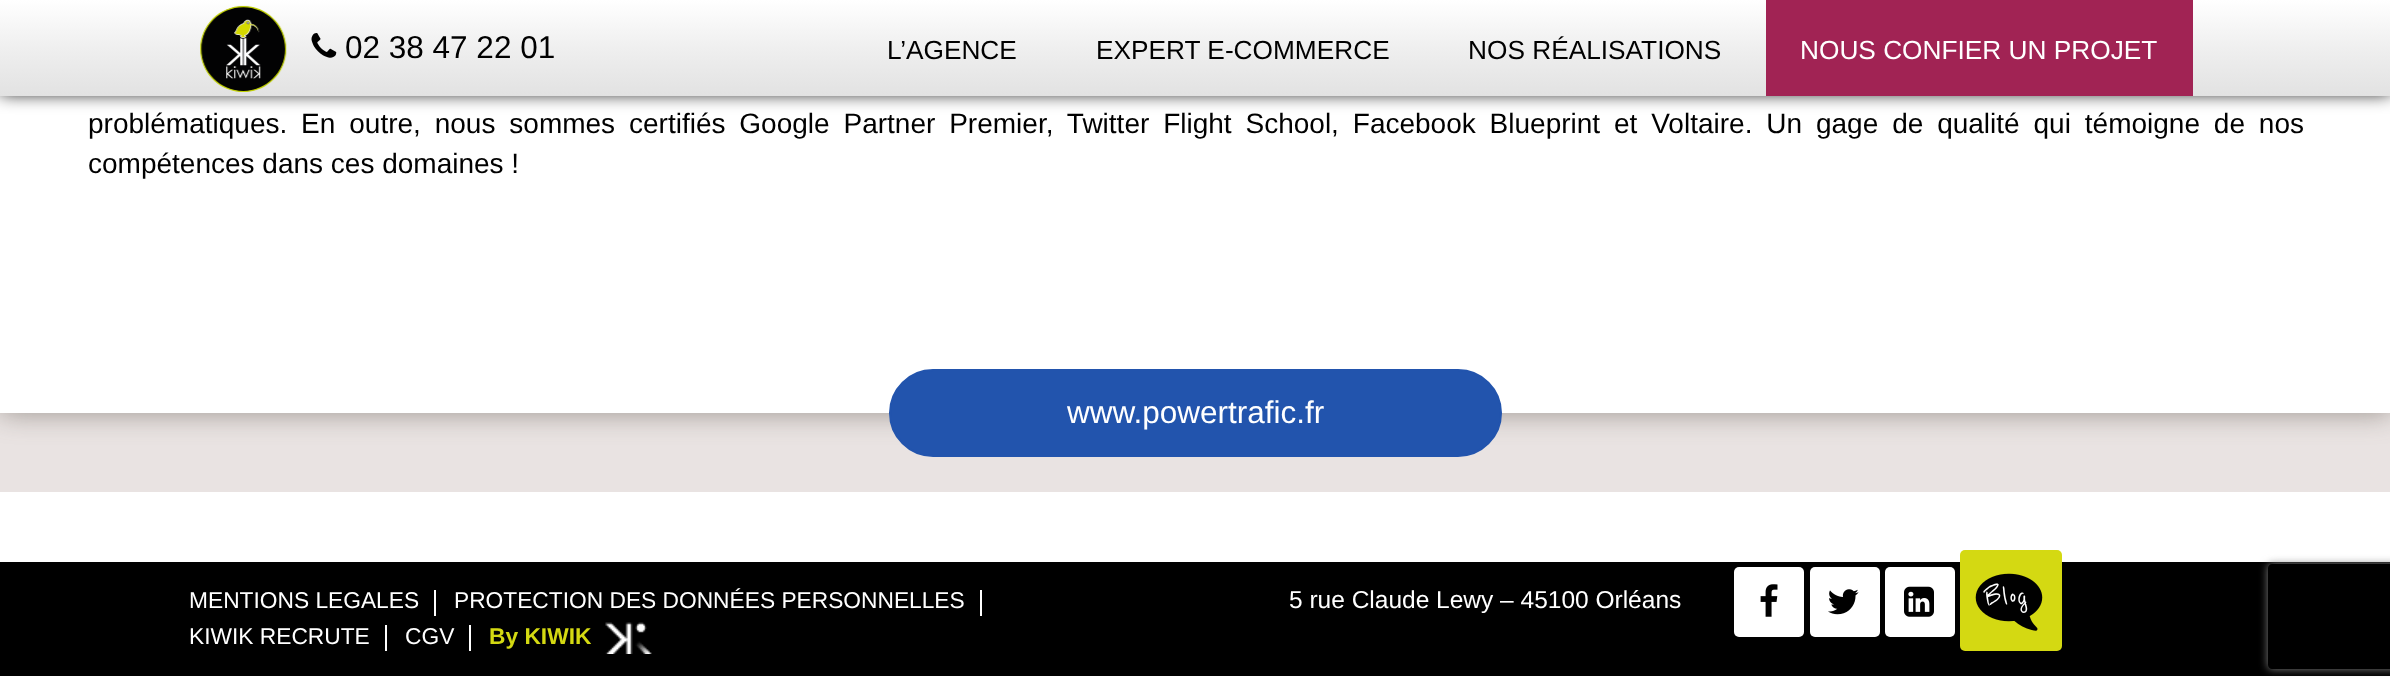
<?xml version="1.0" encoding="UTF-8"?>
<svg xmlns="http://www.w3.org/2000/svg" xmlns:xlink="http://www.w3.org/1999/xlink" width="2390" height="693">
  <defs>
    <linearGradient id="g1" gradientUnits="userSpaceOnUse" x1="1195" y1="0" x2="1195" y2="96"><stop offset="0" stop-color="#ffffff" /><stop offset="0.5" stop-color="#efefef" /><stop offset="1" stop-color="#e2e2e2" /></linearGradient>
    <clipPath id="clip1"><path d="M 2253 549 h 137 v 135 h -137 z m 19 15 h 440 c 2 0 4 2 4 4 v 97 c 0 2 -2 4 -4 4 h -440 c -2 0 -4 -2 -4 -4 v -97 c 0 -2 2 -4 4 -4 z" clip-rule="evenodd" /></clipPath>
  </defs>
  <rect width="100%" height="100%" fill="#ffffff" />
  <rect y="413" width="2390" height="79" fill="#e9e3e2" />
  <rect y="-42" width="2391" height="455" fill="#4e453b" fill-opacity="0.5" filter="blur(14px)" />
  <rect y="96" width="2390" height="317" fill="#ffffff" />
  <rect y="-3" width="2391" height="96" fill="#000000" filter="blur(9px)" />
  <rect width="2390" height="96" fill="url(#g1)" />
  <image x="200" y="5" width="87" height="87" xlink:href="image1.png" />
  <image x="311" y="33" width="26" height="25" xlink:href="image2.png" />
  <rect x="1766" width="427" height="96" fill="#a12354" />
  <rect x="890" y="370" width="611" height="86" rx="43" fill="#2254ad" stroke="#2254ad" stroke-width="2" />
  <rect y="562" width="2390" height="114" fill="#000000" />
  <rect x="434" y="590" width="2" height="26" fill="#ffffff" />
  <rect x="980" y="590" width="2" height="26" fill="#ffffff" />
  <rect x="385" y="625" width="2" height="26" fill="#ffffff" />
  <rect x="469" y="625" width="2" height="26" fill="#ffffff" />
  <image x="605" y="622" width="47" height="32" xlink:href="image3.png" />
  <rect x="1734" y="567" width="70" height="70" rx="5" fill="#ffffff" />
  <image x="1760" y="584" width="18" height="33" xlink:href="image4.png" />
  <rect x="1810" y="567" width="70" height="70" rx="5" fill="#ffffff" />
  <image x="1828" y="589" width="31" height="26" xlink:href="image5.png" />
  <rect x="1885" y="567" width="70" height="70" rx="5" fill="#ffffff" />
  <image x="1904" y="586" width="30" height="31" xlink:href="image6.png" />
  <rect x="1960" y="550" width="102" height="101" rx="5" fill="#d4d912" />
  <image x="1975" y="573" width="68" height="58" xlink:href="image7.png" />
  <g clip-path="url(#clip1)">
    <rect x="2268" y="564" width="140" height="105" rx="4" fill="#808080" filter="blur(4.5px)" />
  </g>
  <text x="345" y="58" style="font-family: Liberation Sans; font-size: 31.5px; fill: #000000">02 38 47 22 01</text>
  <text x="887" y="59" style="font-family: Liberation Sans; font-size: 26.25px; fill: #000000">L’AGENCE</text>
  <text x="1096" y="59" style="font-family: Liberation Sans; font-size: 26.25px; fill: #000000">EXPERT E-COMMERCE</text>
  <text x="1468" y="59" style="font-family: Liberation Sans; font-size: 26.25px; fill: #000000">NOS RÉALISATIONS</text>
  <text x="1800" y="59" style="font-family: Liberation Sans; font-size: 26.25px; fill: #ffffff">NOUS CONFIER UN PROJET</text>
  <text x="88" y="133" word-spacing="6.1" style="font-family: Liberation Sans; font-size: 28px; fill: #000000">problématiques. En outre, nous sommes certifiés Google Partner Premier, Twitter Flight School, Facebook Blueprint et Voltaire. Un gage de qualité qui témoigne de nos</text>
  <text x="88" y="173" style="font-family: Liberation Sans; font-size: 28px; fill: #000000">compétences dans ces domaines !</text>
  <text x="1067" y="423" style="font-family: Liberation Sans; font-size: 31.5px; fill: #ffffff">www.powertrafic.fr</text>
  <text x="189" y="608" style="font-family: Liberation Sans; font-size: 22.75px; fill: #ffffff">MENTIONS LEGALES</text>
  <text x="454" y="608" style="font-family: Liberation Sans; font-size: 22.75px; fill: #ffffff">PROTECTION DES DONNÉES PERSONNELLES</text>
  <text x="189" y="644" style="font-family: Liberation Sans; font-size: 22.75px; fill: #ffffff">KIWIK RECRUTE</text>
  <text x="405" y="644" style="font-family: Liberation Sans; font-size: 22.75px; fill: #ffffff">CGV</text>
  <text x="489" y="644" style="font-family: Liberation Sans; font-size: 22.75px; font-weight: bold; fill: #d4d912">By KIWIK</text>
  <text x="1289" y="608" style="font-family: Liberation Sans; font-size: 24.5px; fill: #ffffff">5 rue Claude Lewy – 45100 Orléans</text>
  <text x="1984" y="605" style="font-family: Reenie Beanie; font-size: 31.5px; font-weight: 500; fill: #ffffff">Blog</text>
</svg>
